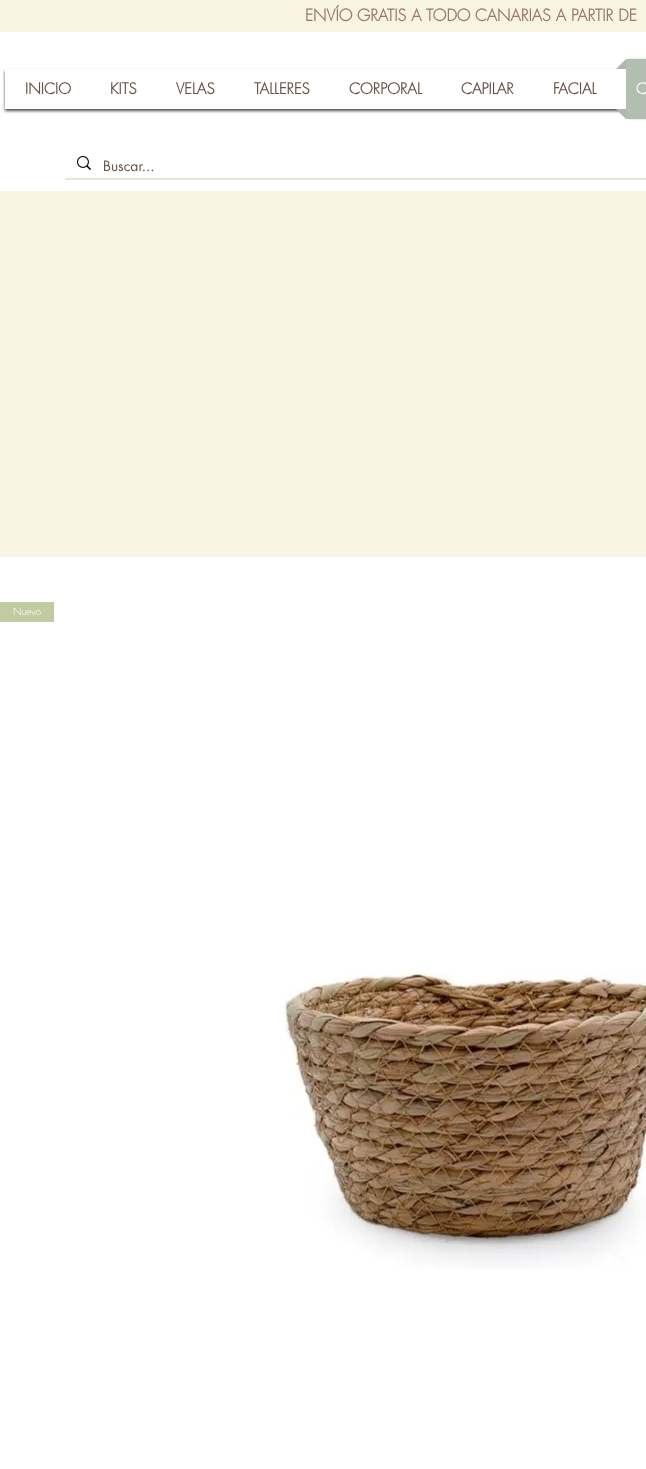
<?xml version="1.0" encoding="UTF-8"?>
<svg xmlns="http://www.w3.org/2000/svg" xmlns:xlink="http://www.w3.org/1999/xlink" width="646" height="1469">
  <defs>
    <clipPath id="clip1"><path d="M 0 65 h 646 v 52 h -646 z m 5 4 h 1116 v 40 h -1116 z" clip-rule="evenodd" /></clipPath>
  </defs>
  <rect width="100%" height="100%" fill="#ffffff" />
  <rect width="646" height="32" fill="#f7f5e1" />
  <g clip-path="url(#clip1)">
    <rect x="5" y="71" width="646" height="40" fill="#000000" fill-opacity="0.7" filter="blur(1.5px)" />
  </g>
  <rect x="628" y="59" width="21" height="60" fill="#000000" fill-opacity="0.2" filter="blur(1px)" />
  <path d="M 626 69 h -10 l 10 -10 z m -10 40 h 10 v 10 z" fill="#b3b3b3" />
  <rect x="626" y="59" width="20" height="60" fill="#b2beb0" />
  <rect x="65" y="178" width="581" height="2" fill="#ebe5d6" />
  <image x="77" y="156" width="14" height="14" xlink:href="image1.png" />
  <rect y="191" width="646" height="366" fill="#f7f5e1" />
  <rect y="602" width="54" height="20" fill="#c1cba2" />
  <image x="284" y="969" width="362" height="300" xlink:href="image2.png" />
  <text x="305" y="21" style="font-family: futura; font-size: 16px; font-weight: bold; fill: #9b7867">ENVÍO GRATIS A TODO CANARIAS A PARTIR DE</text>
  <text x="25" y="94" style="font-family: futura; font-size: 15px; font-weight: bold; fill: #675045">INICIO</text>
  <text x="110" y="94" style="font-family: futura; font-size: 15px; font-weight: bold; fill: #675045">KITS</text>
  <text x="176" y="94" style="font-family: futura; font-size: 15px; font-weight: bold; fill: #675045">VELAS</text>
  <text x="254" y="94" style="font-family: futura; font-size: 15px; font-weight: bold; fill: #675045">TALLERES</text>
  <text x="349" y="94" style="font-family: futura; font-size: 15px; font-weight: bold; fill: #675045">CORPORAL</text>
  <text x="461" y="94" style="font-family: futura; font-size: 15px; font-weight: bold; fill: #675045">CAPILAR</text>
  <text x="553" y="94" style="font-family: futura; font-size: 15px; font-weight: bold; fill: #675045">FACIAL</text>
  <text x="636" y="94" style="font-family: futura; font-size: 15px; font-weight: bold; fill: #ffffff">C</text>
  <text x="103" y="171" style="font-family: futura; font-size: 14px; fill: #675045">Buscar...</text>
  <text x="13" y="615" style="font-family: futura; font-size: 10px; font-weight: 300; fill: #ffffff">Nuevo</text>
</svg>
